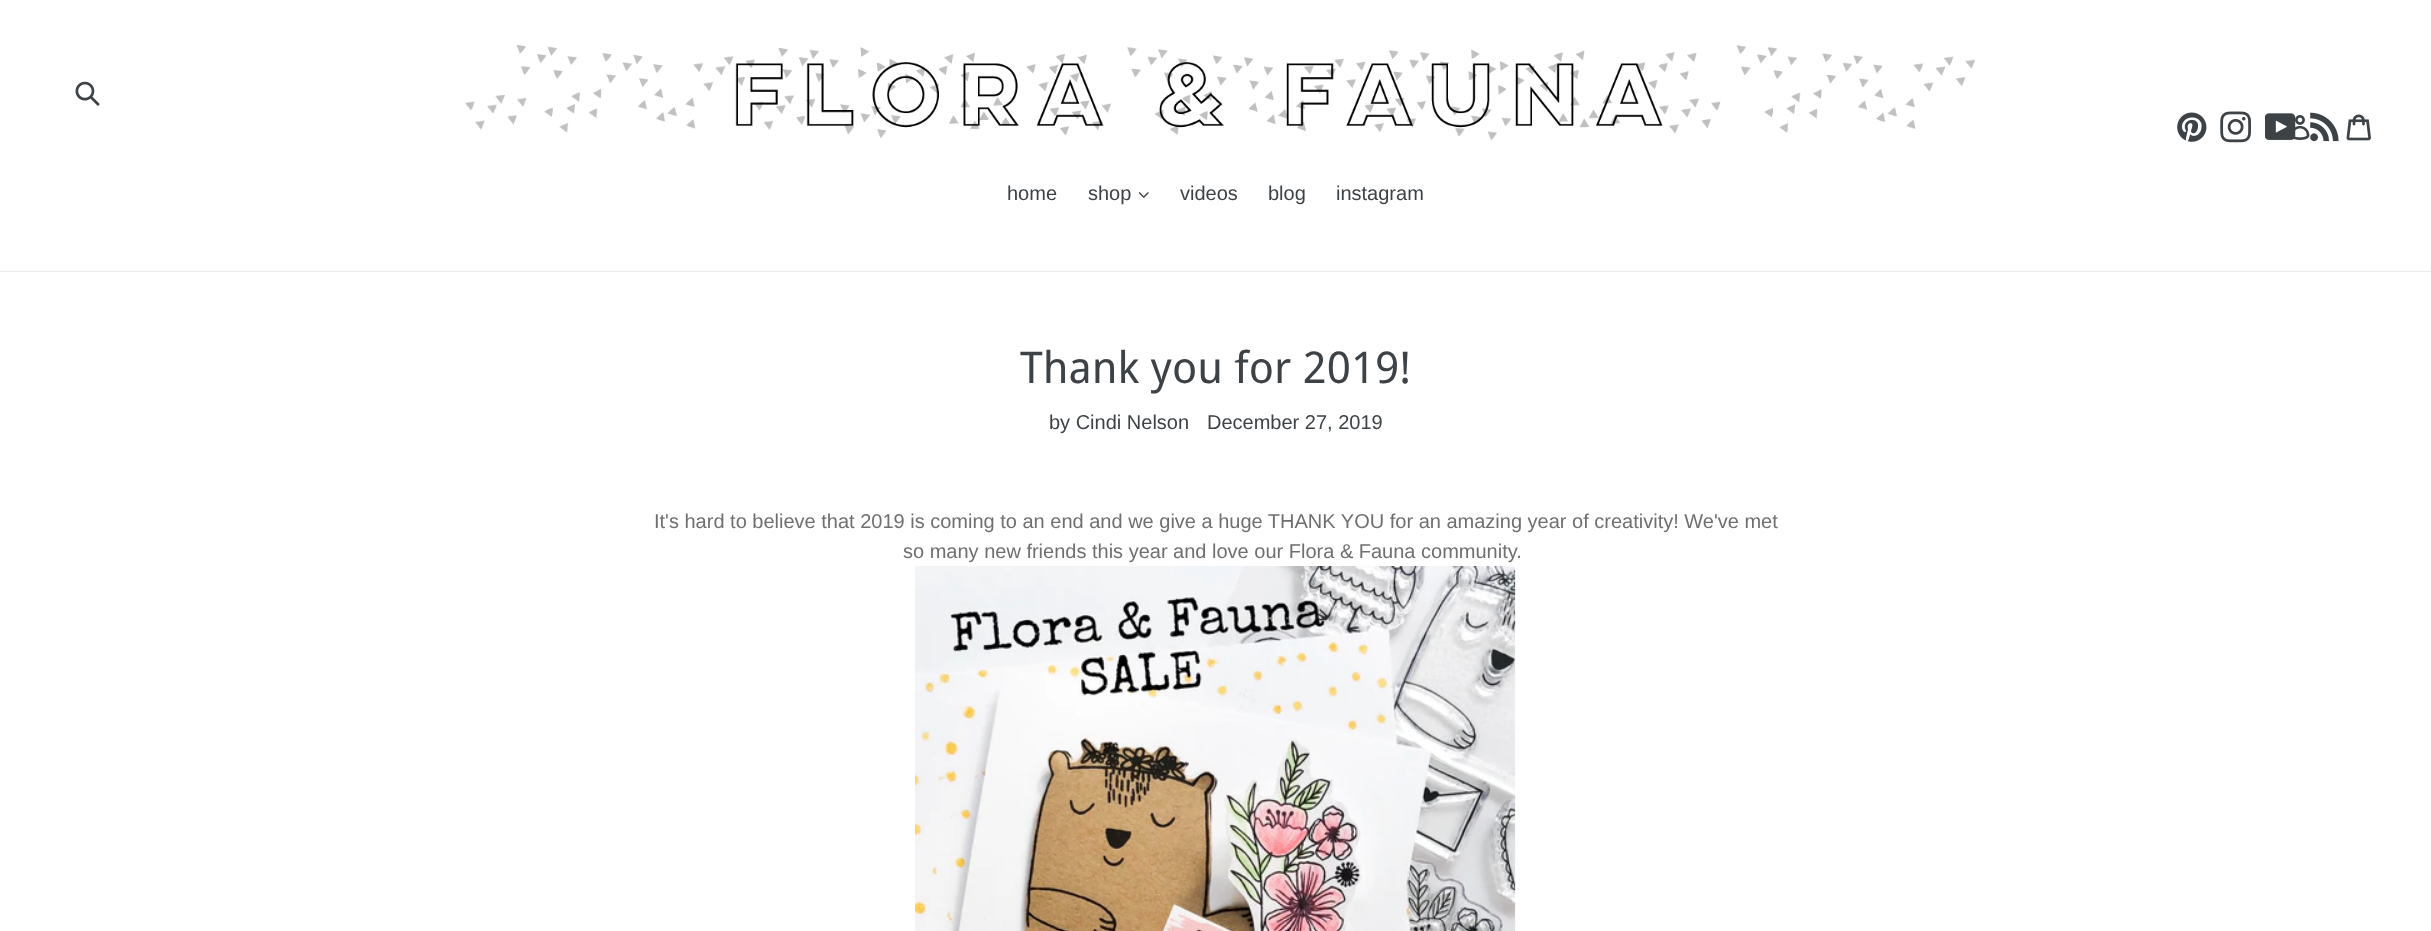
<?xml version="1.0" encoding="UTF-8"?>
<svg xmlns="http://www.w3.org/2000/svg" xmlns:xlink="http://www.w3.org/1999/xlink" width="2431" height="931">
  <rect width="100%" height="100%" fill="#ffffff" />
  <image x="75" y="81" width="25" height="25" xlink:href="image1.png" />
  <image x="465" y="44" width="1510" height="97" xlink:href="image2.png" />
  <image x="2177" y="112" width="30" height="30" xlink:href="image3.png" />
  <image x="2220" y="111" width="31" height="32" xlink:href="image4.png" />
  <image x="2265" y="113" width="31" height="27" xlink:href="image5.png" />
  <image x="2310" y="112" width="29" height="30" xlink:href="image6.png" />
  <image x="2346" y="114" width="25" height="27" xlink:href="image7.png" />
  <image x="2293" y="115" width="17" height="25" xlink:href="image8.png" />
  <rect y="271" width="2431" height="1" fill="#e8e9eb" />
  <image x="1139" y="192" width="10" height="6" xlink:href="image9.png" />
  <image x="915" y="566" width="601" height="365" xlink:href="image10.png" />
  <text x="1007" y="200" style="font-family: Liberation Sans; font-size: 20px; fill: #3d4246">home</text>
  <text x="1088" y="200" style="font-family: Liberation Sans; font-size: 20px; fill: #3d4246">shop</text>
  <text x="1180" y="200" style="font-family: Liberation Sans; font-size: 20px; fill: #3d4246">videos</text>
  <text x="1268" y="200" style="font-family: Liberation Sans; font-size: 20px; fill: #3d4246">blog</text>
  <text x="1336" y="200" style="font-family: Liberation Sans; font-size: 20px; fill: #3d4246">instagram</text>
  <text x="1020" y="383" style="font-family: Droid Sans; font-size: 43.75px; fill: #3d4246">Thank you for 2019!</text>
  <text x="1049" y="429" style="font-family: Liberation Sans; font-size: 20px; fill: #3d4246">by Cindi Nelson</text>
  <text x="1207" y="429" style="font-family: Liberation Sans; font-size: 20px; fill: #3d4246">December 27, 2019</text>
  <text x="654" y="528" style="font-family: Liberation Sans; font-size: 20px; fill: #6e6f6f">It's hard to believe that 2019 is coming to an end and we give a huge THANK YOU for an amazing year of creativity! We've met</text>
  <text x="903" y="558" style="font-family: Liberation Sans; font-size: 20px; fill: #6e6f6f">so many new friends this year and love our Flora &amp; Fauna community.</text>
</svg>
